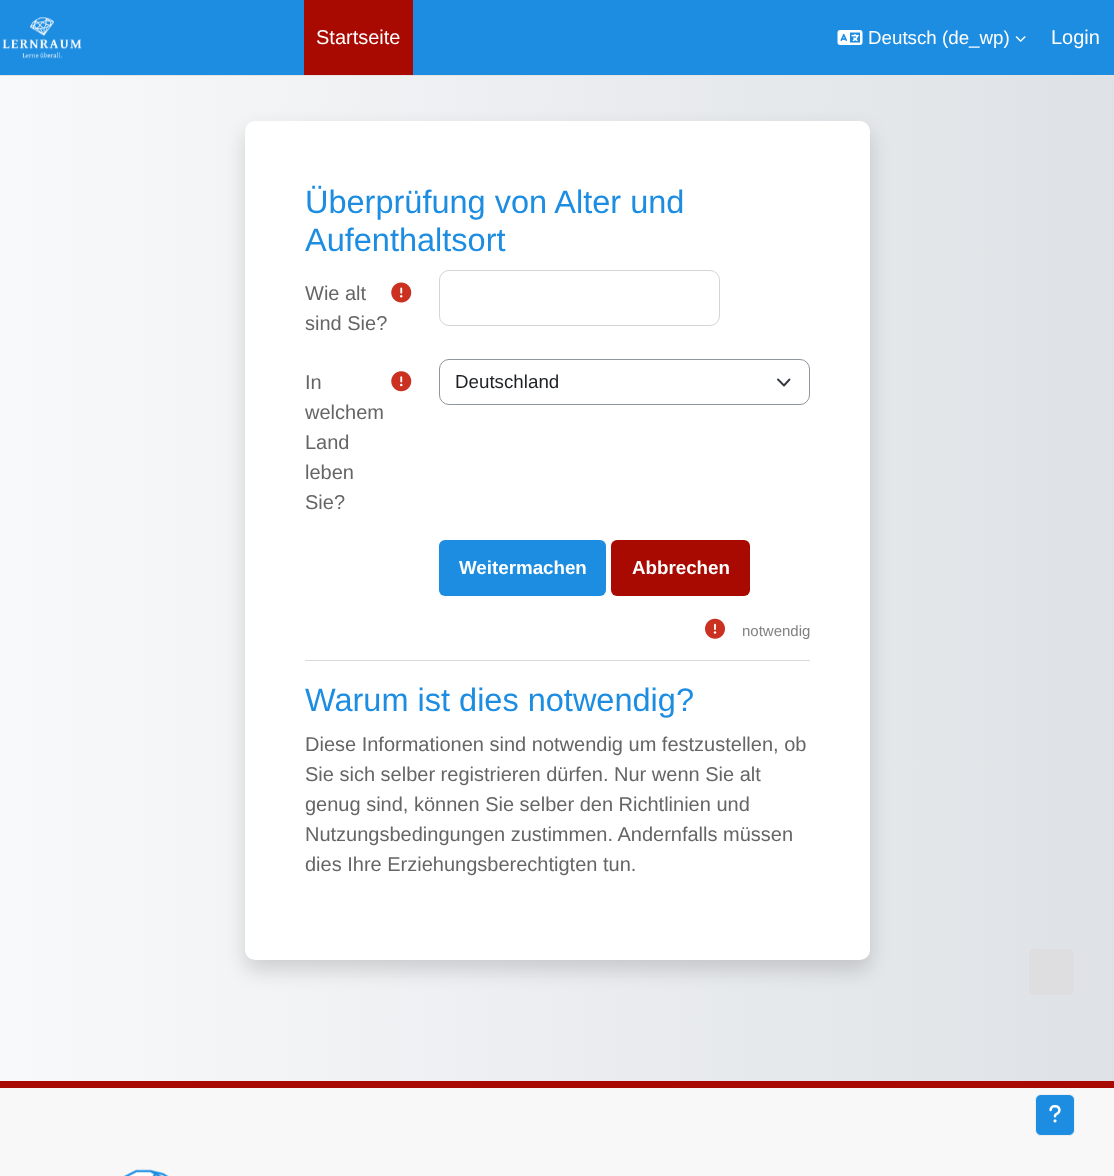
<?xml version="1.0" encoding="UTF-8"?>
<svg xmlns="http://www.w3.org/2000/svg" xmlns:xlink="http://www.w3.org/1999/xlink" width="1114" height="1176">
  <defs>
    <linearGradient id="g1" gradientUnits="userSpaceOnUse" x1="0" y1="570" x2="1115" y2="570"><stop offset="0" stop-color="#f8f9fa" /><stop offset="1" stop-color="#dee2e6" /></linearGradient>
  </defs>
  <rect width="100%" height="100%" fill="#ffffff" />
  <rect width="1114" height="75" fill="#1d8de2" />
  <rect y="75" width="1114" height="1" fill="#e8e3e3" />
  <image x="2" y="17" width="80" height="42" xlink:href="image1.png" />
  <rect x="304" width="109" height="75" fill="#a80900" />
  <image x="837" y="30" width="26" height="15" xlink:href="image2.png" />
  <image x="1015" y="36" width="11" height="6" xlink:href="image3.png" />
  <rect y="76" width="1114" height="1005" fill="url(#g1)" />
  <rect x="245" y="131" width="625" height="839" rx="10" fill="#000000" fill-opacity="0.15" filter="blur(10px)" />
  <rect x="245" y="121" width="625" height="839" rx="10" fill="#ffffff" />
  <image x="391" y="282" width="21" height="21" xlink:href="image4.png" />
  <rect x="439.5" y="270.5" width="280" height="55" rx="9.5" fill="none" stroke="#d5d5d5" />
  <image x="391" y="371" width="21" height="21" xlink:href="image5.png" />
  <path d="M 778 379.5 l 6 6 l 5.5 -6" fill="none" stroke="#343a40" stroke-width="1.9" stroke-linecap="round" stroke-linejoin="round" />
  <rect x="439.5" y="359.5" width="370" height="45" rx="9.5" fill="none" stroke="#8f959e" />
  <rect x="439" y="540" width="167" height="56" rx="6" fill="#1d8de2" />
  <rect x="611" y="540" width="139" height="56" rx="6" fill="#a80900" />
  <image x="705" y="618" width="20" height="21" xlink:href="image6.png" />
  <rect x="305" y="660" width="505" height="1" fill="#d9d9d9" />
  <rect x="1028.5" y="948.5" width="46" height="47" rx="5.5" fill="#dedee1" stroke="#e0e4e8" />
  <rect y="1088" width="1114" height="88" fill="#f8f8f8" />
  <rect y="1081" width="1114" height="7" fill="#a80900" />
  <image x="124" y="1169" width="45" height="7" xlink:href="image7.png" />
  <rect x="1035.5" y="1094.5" width="39" height="41" rx="5.5" fill="#1d8de2" stroke="#eeeeee" />
  <image x="1049" y="1105" width="12" height="18" xlink:href="image8.png" />
  <text x="316" y="44" style="font-family: Liberation Sans; font-size: 20px; fill: #ffffff">Startseite</text>
  <text x="868" y="44" style="font-family: Liberation Sans; font-size: 18.75px; fill: #ffffff">Deutsch (de_wp)</text>
  <text x="1051" y="44" style="font-family: Liberation Sans; font-size: 20px; fill: #ffffff">Login</text>
  <text x="305" y="213" style="font-family: Liberation Sans; font-size: 32.5px; fill: #1d8de2">Überprüfung von Alter und</text>
  <text x="305" y="251" style="font-family: Liberation Sans; font-size: 32.5px; fill: #1d8de2">Aufenthaltsort</text>
  <text x="305" y="300" style="font-family: Liberation Sans; font-size: 20px; fill: #656565">Wie alt</text>
  <text x="305" y="330" style="font-family: Liberation Sans; font-size: 20px; fill: #656565">sind Sie?</text>
  <text x="305" y="389" style="font-family: Liberation Sans; font-size: 20px; fill: #656565">In</text>
  <text x="305" y="419" style="font-family: Liberation Sans; font-size: 20px; fill: #656565">welchem</text>
  <text x="305" y="449" style="font-family: Liberation Sans; font-size: 20px; fill: #656565">Land</text>
  <text x="305" y="479" style="font-family: Liberation Sans; font-size: 20px; fill: #656565">leben</text>
  <text x="305" y="509" style="font-family: Liberation Sans; font-size: 20px; fill: #656565">Sie?</text>
  <text x="455" y="388" style="font-family: Liberation Sans; font-size: 18.75px; fill: #1d2125">Deutschland</text>
  <text x="459" y="574" style="font-family: Liberation Sans; font-size: 18.75px; font-weight: bold; fill: #ffffff">Weitermachen</text>
  <text x="632" y="574" style="font-family: Liberation Sans; font-size: 18.75px; font-weight: bold; fill: #ffffff">Abbrechen</text>
  <text x="742" y="636" style="font-family: Liberation Sans; font-size: 15px; fill: #828282">notwendig</text>
  <text x="305" y="711" style="font-family: Liberation Sans; font-size: 32.5px; fill: #1d8de2">Warum ist dies notwendig?</text>
  <text x="305" y="751" style="font-family: Liberation Sans; font-size: 20px; fill: #656565">Diese Informationen sind notwendig um festzustellen, ob</text>
  <text x="305" y="781" style="font-family: Liberation Sans; font-size: 20px; fill: #656565">Sie sich selber registrieren dürfen. Nur wenn Sie alt</text>
  <text x="305" y="811" style="font-family: Liberation Sans; font-size: 20px; fill: #656565">genug sind, können Sie selber den Richtlinien und</text>
  <text x="305" y="841" style="font-family: Liberation Sans; font-size: 20px; fill: #656565">Nutzungsbedingungen zustimmen. Andernfalls müssen</text>
  <text x="305" y="871" style="font-family: Liberation Sans; font-size: 20px; fill: #656565">dies Ihre Erziehungsberechtigten tun.</text>
</svg>
